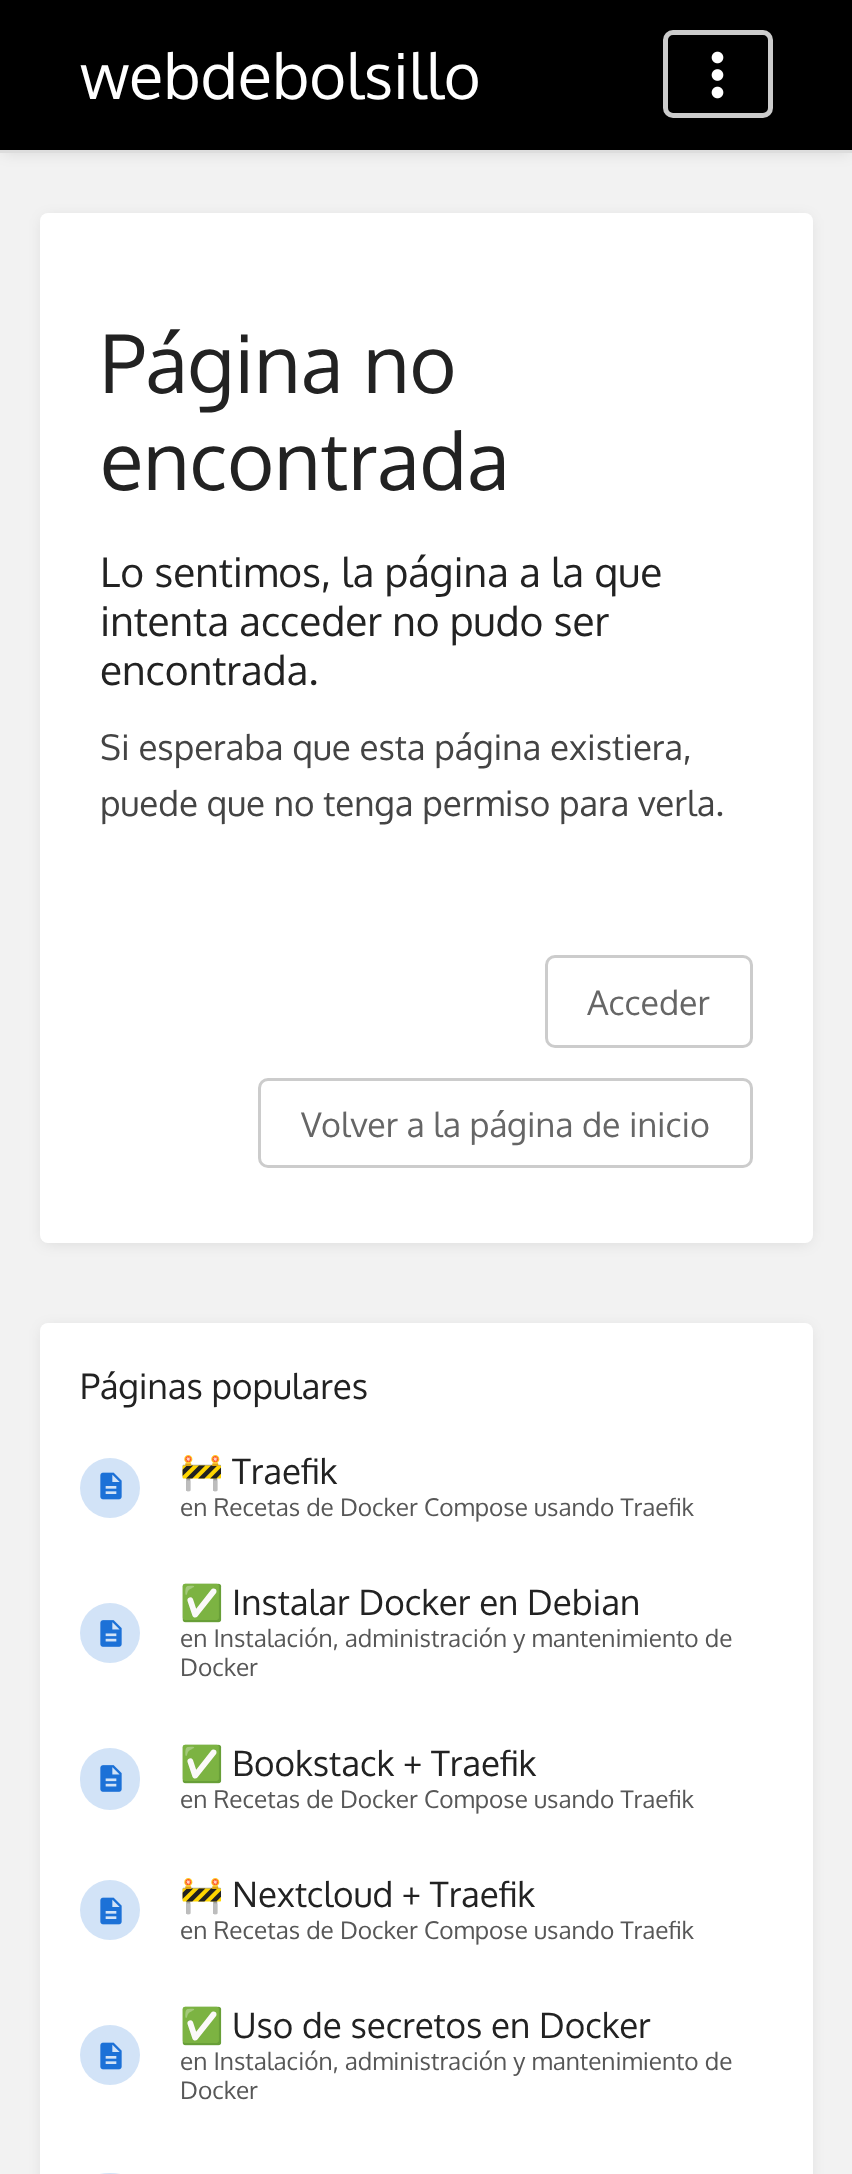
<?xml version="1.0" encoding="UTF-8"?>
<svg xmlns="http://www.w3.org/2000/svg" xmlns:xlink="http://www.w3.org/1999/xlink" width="852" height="2174">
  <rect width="100%" height="100%" fill="#f2f2f2" />
  <rect x="3" y="5" width="847" height="148" fill="#000000" fill-opacity="0.1" filter="blur(7.5px)" />
  <rect width="852" height="150" fill="#000000" />
  <rect y="150" width="852" height="3" fill="#dddddd" />
  <rect x="665.5" y="32.5" width="105" height="83" rx="7.5" fill="none" stroke="#cccccc" stroke-width="5" />
  <image x="711" y="51" width="13" height="48" xlink:href="image1.png" />
  <rect x="43" y="218" width="767" height="1025" rx="5" fill="#000000" fill-opacity="0.1" filter="blur(7.5px)" />
  <rect x="40" y="213" width="773" height="1030" rx="8" fill="#ffffff" />
  <rect x="546.5" y="956.5" width="205" height="90" rx="8.5" fill="none" stroke="#cccccc" stroke-width="3" />
  <rect x="259.5" y="1079.5" width="492" height="87" rx="8.5" fill="none" stroke="#cccccc" stroke-width="3" />
  <rect x="43" y="1328" width="767" height="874" rx="5" fill="#000000" fill-opacity="0.1" filter="blur(7.5px)" />
  <rect x="40" y="1323" width="773" height="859" rx="8" fill="#ffffff" />
  <image x="100" y="1472" width="22" height="28" xlink:href="image2.png" />
  <circle cx="110" cy="1488" r="30" fill="#1c71d8" fill-opacity="0.2" />
  <image x="100" y="1620" width="22" height="27" xlink:href="image3.png" />
  <circle cx="110" cy="1633" r="30" fill="#1c71d8" fill-opacity="0.2" />
  <image x="100" y="1765" width="22" height="27" xlink:href="image3.png" />
  <rect x="80" y="1748" width="60" height="62" rx="30" fill="#1c71d8" fill-opacity="0.2" />
  <image x="100" y="1897" width="22" height="28" xlink:href="image2.png" />
  <circle cx="110" cy="1910" r="30" fill="#1c71d8" fill-opacity="0.2" />
  <image x="100" y="2042" width="22" height="28" xlink:href="image2.png" />
  <circle cx="110" cy="2055" r="30" fill="#1c71d8" fill-opacity="0.2" />
  <rect x="80" y="2173" width="60" height="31" rx="30" fill="#d2e3f7" />
  <text x="80" y="99" style="font-family: Oxygen; font-size: 63px; fill: #ffffff">webdebolsillo</text>
  <text x="100" y="393" style="font-family: Oxygen; font-size: 80px; fill: #222222">Página no</text>
  <text x="100" y="490" style="font-family: Oxygen; font-size: 80px; fill: #222222">encontrada</text>
  <text x="100" y="587" style="font-family: Oxygen; font-size: 40.7px; fill: #222222">Lo sentimos, la página a la que</text>
  <text x="100" y="636" style="font-family: Oxygen; font-size: 40.7px; fill: #222222">intenta acceder no pudo ser</text>
  <text x="100" y="685" style="font-family: Oxygen; font-size: 40.7px; fill: #222222">encontrada.</text>
  <text x="100" y="760" style="font-family: Oxygen; font-size: 35px; fill: #444444">Si esperaba que esta página existiera,</text>
  <text x="100" y="816" style="font-family: Oxygen; font-size: 35px; fill: #444444">puede que no tenga permiso para verla.</text>
  <text x="587" y="1015" style="font-family: Oxygen; font-size: 34px; fill: #666666">Acceder</text>
  <text x="301" y="1137" style="font-family: Oxygen; font-size: 34px; fill: #666666">Volver a la página de inicio</text>
  <text x="80" y="1399" style="font-family: Oxygen; font-size: 35px; fill: #222222">Páginas populares</text>
  <text x="180" y="1484" style="font-family: Noto Color Emoji; font-size: 35px; fill: #222222">🚧</text>
  <text x="232" y="1484" style="font-family: Oxygen; font-size: 35px; fill: #222222">Traefik</text>
  <text x="180" y="1516" style="font-family: Oxygen; font-size: 24.4px; fill: #575757">en Recetas de Docker Compose usando Traefik</text>
  <text x="180" y="1615" style="font-family: Noto Color Emoji; font-size: 35px; fill: #222222">✅</text>
  <text x="232" y="1615" style="font-family: Oxygen; font-size: 35px; fill: #222222">Instalar Docker en Debian</text>
  <text x="180" y="1647" style="font-family: Oxygen; font-size: 24.4px; fill: #575757">en Instalación, administración y mantenimiento de</text>
  <text x="180" y="1676" style="font-family: Oxygen; font-size: 24.4px; fill: #575757">Docker</text>
  <text x="180" y="1776" style="font-family: Noto Color Emoji; font-size: 35px; fill: #222222">✅</text>
  <text x="232" y="1776" style="font-family: Oxygen; font-size: 35px; fill: #222222">Bookstack + Traefik</text>
  <text x="180" y="1808" style="font-family: Oxygen; font-size: 24.4px; fill: #575757">en Recetas de Docker Compose usando Traefik</text>
  <text x="180" y="1907" style="font-family: Noto Color Emoji; font-size: 35px; fill: #222222">🚧</text>
  <text x="232" y="1907" style="font-family: Oxygen; font-size: 35px; fill: #222222">Nextcloud + Traefik</text>
  <text x="180" y="1939" style="font-family: Oxygen; font-size: 24.4px; fill: #575757">en Recetas de Docker Compose usando Traefik</text>
  <text x="180" y="2038" style="font-family: Noto Color Emoji; font-size: 35px; fill: #222222">✅</text>
  <text x="232" y="2038" style="font-family: Oxygen; font-size: 35px; fill: #222222">Uso de secretos en Docker</text>
  <text x="180" y="2070" style="font-family: Oxygen; font-size: 24.4px; fill: #575757">en Instalación, administración y mantenimiento de</text>
  <text x="180" y="2099" style="font-family: Oxygen; font-size: 24.4px; fill: #575757">Docker</text>
</svg>
